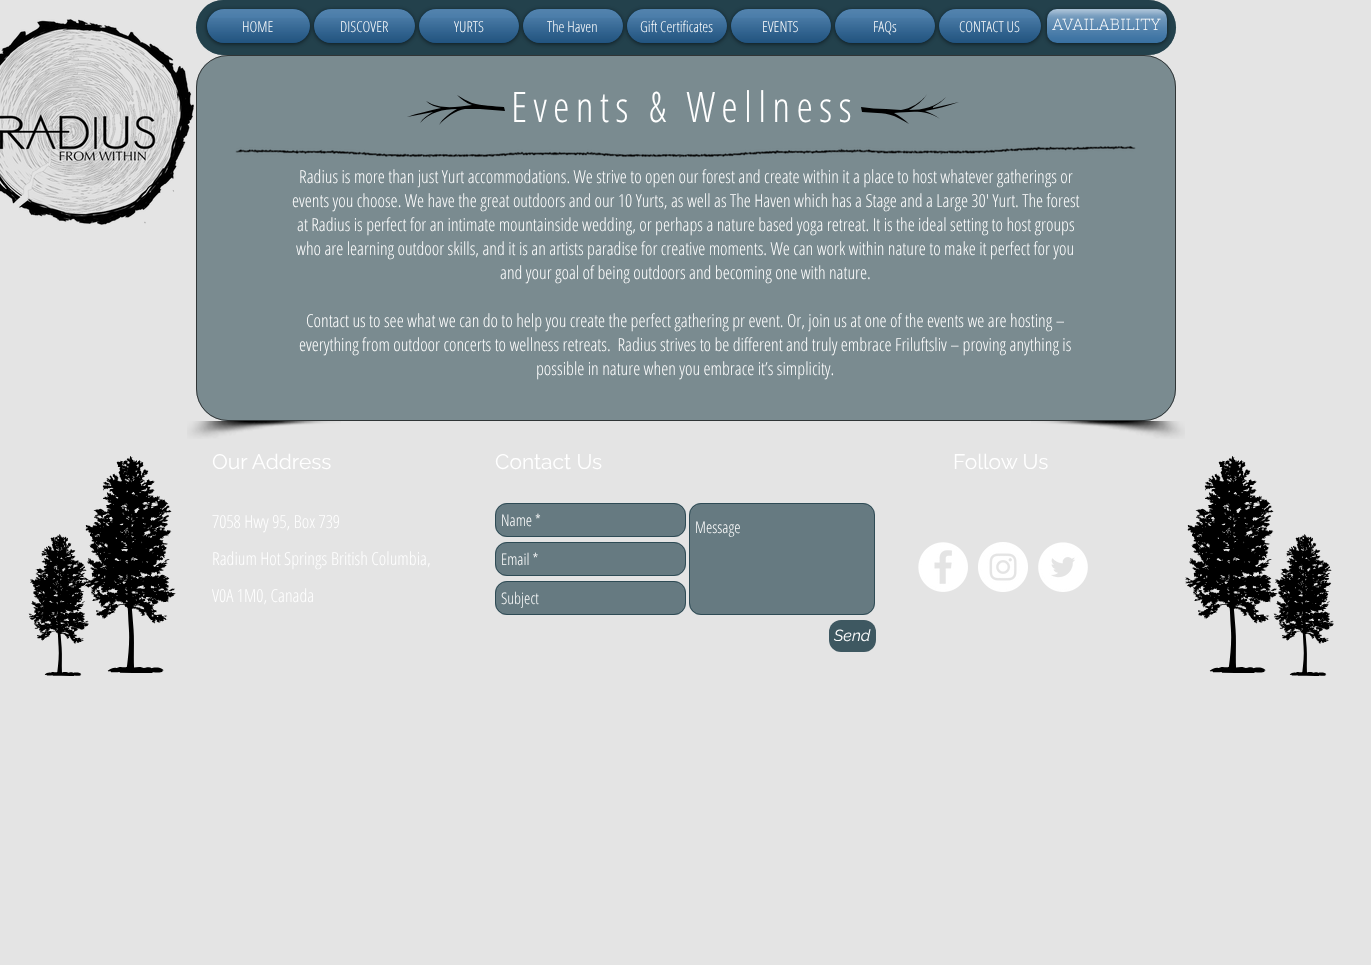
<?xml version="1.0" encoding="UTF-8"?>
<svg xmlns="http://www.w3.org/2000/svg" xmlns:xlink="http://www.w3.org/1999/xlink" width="1371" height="965">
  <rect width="100%" height="100%" fill="#e4e4e4" />
  <image x="0" y="19" width="194" height="206" xlink:href="image1.png" />
  <rect x="196" width="980" height="55" rx="27.5" fill="#3e5861" />
  <rect x="196" width="980" height="55" rx="27.5" fill="#193944" fill-opacity="0.72" />
  <rect x="207" y="10" width="103" height="34" rx="17" fill="#000000" fill-opacity="0.6" filter="blur(2px)" />
  <rect x="207" y="9" width="103" height="34" rx="17" fill="#286499" />
  <image x="207" y="9" width="103" height="33" xlink:href="image2.png" />
  <image x="207" y="18" width="103" height="25" xlink:href="image3.png" />
  <rect x="314" y="10" width="101" height="34" rx="17" fill="#000000" fill-opacity="0.6" filter="blur(2px)" />
  <rect x="314" y="9" width="101" height="34" rx="17" fill="#286499" />
  <image x="314" y="9" width="101" height="33" xlink:href="image4.png" />
  <image x="314" y="18" width="101" height="25" xlink:href="image5.png" />
  <rect x="419" y="10" width="100" height="34" rx="17" fill="#000000" fill-opacity="0.6" filter="blur(2px)" />
  <rect x="419" y="9" width="100" height="34" rx="17" fill="#286499" />
  <image x="419" y="9" width="100" height="33" xlink:href="image6.png" />
  <image x="419" y="18" width="100" height="25" xlink:href="image7.png" />
  <rect x="523" y="10" width="100" height="34" rx="17" fill="#000000" fill-opacity="0.6" filter="blur(2px)" />
  <rect x="523" y="9" width="100" height="34" rx="17" fill="#286499" />
  <image x="523" y="9" width="100" height="33" xlink:href="image6.png" />
  <image x="523" y="18" width="100" height="25" xlink:href="image7.png" />
  <rect x="627" y="10" width="100" height="34" rx="17" fill="#000000" fill-opacity="0.6" filter="blur(2px)" />
  <rect x="627" y="9" width="100" height="34" rx="17" fill="#286499" />
  <image x="627" y="9" width="100" height="33" xlink:href="image6.png" />
  <image x="627" y="18" width="100" height="25" xlink:href="image8.png" />
  <rect x="731" y="10" width="100" height="34" rx="17" fill="#000000" fill-opacity="0.6" filter="blur(2px)" />
  <rect x="731" y="9" width="100" height="34" rx="17" fill="#286499" />
  <image x="731" y="9" width="100" height="33" xlink:href="image6.png" />
  <image x="731" y="18" width="100" height="25" xlink:href="image7.png" />
  <rect x="835" y="10" width="100" height="34" rx="17" fill="#000000" fill-opacity="0.6" filter="blur(2px)" />
  <rect x="835" y="9" width="100" height="34" rx="17" fill="#286499" />
  <image x="835" y="9" width="100" height="33" xlink:href="image6.png" />
  <image x="835" y="18" width="100" height="25" xlink:href="image7.png" />
  <rect x="939" y="10" width="102" height="34" rx="17" fill="#000000" fill-opacity="0.6" filter="blur(2px)" />
  <rect x="939" y="9" width="102" height="34" rx="17" fill="#286499" />
  <image x="939" y="9" width="102" height="33" xlink:href="image9.png" />
  <image x="939" y="18" width="102" height="25" xlink:href="image10.png" />
  <rect x="1047" y="10" width="120" height="34" rx="10" fill="#000000" fill-opacity="0.6" filter="blur(2px)" />
  <rect x="1047" y="9" width="120" height="34" rx="10" fill="#286499" />
  <image x="1047" y="9" width="120" height="34" xlink:href="image11.png" />
  <rect x="196" y="55" width="980" height="366" rx="32" fill="#7a8b90" />
  <rect x="196.5" y="55.5" width="979" height="365" rx="31.5" fill="none" stroke="#141414" stroke-opacity="0.72" />
  <image x="187" y="421" width="154" height="18" xlink:href="image12.png" />
  <image x="1031" y="421" width="154" height="18" xlink:href="image13.png" />
  <path d="M 441 108 c -5 -1 -11 -3 -15 -7 c 14 9 30 6 46 4 c -6 -2 -11 -6 -15 -10 c 5 3 10 6 15 8 c 10 3 22 3 32 4 l 1 4 c -8 -1 -17 -1 -25 -2 h -15 c -9 1 -20 9 -26 16 c 4 -7 11 -12 18 -16 c -14 0 -27 3 -37 14 c 3 -5 8 -8 13 -11 l -26 5 c 11 -4 22 -6 34 -9 z" fill="#000000" />
  <path d="M 925 111 c 5 2 10 4 15 8 c -14 -10 -30 -7 -46 -6 c 6 3 11 7 15 11 c -5 -3 -10 -6 -15 -8 c -11 -4 -22 -3 -32 -4 l -1 -5 c 8 1 17 2 25 2 l 15 1 c 9 -1 21 -8 26 -16 c -4 7 -11 12 -18 16 c 14 0 27 -3 37 -13 c -3 4 -8 7 -13 10 v 1 l 26 -6 c -11 4 -22 7 -34 9 z" fill="#000000" />
  <image x="235" y="146" width="901" height="12" xlink:href="image14.png" />
  <image x="83" y="456" width="93" height="217" xlink:href="image15.png" />
  <image x="1185" y="456" width="93" height="217" xlink:href="image16.png" />
  <image x="28" y="534" width="61" height="142" xlink:href="image17.png" />
  <rect x="495" y="503" width="191" height="34" rx="12" fill="#667a81" />
  <rect x="495.5" y="503.5" width="190" height="33" rx="11.5" fill="none" stroke="#193944" stroke-opacity="0.72" />
  <rect x="689" y="503" width="186" height="112" rx="12" fill="#667a81" />
  <rect x="689.5" y="503.5" width="185" height="111" rx="11.5" fill="none" stroke="#193944" stroke-opacity="0.72" />
  <rect x="495" y="542" width="191" height="34" rx="12" fill="#667a81" />
  <rect x="495.5" y="542.5" width="190" height="33" rx="11.5" fill="none" stroke="#193944" stroke-opacity="0.72" />
  <rect x="495" y="581" width="191" height="34" rx="12" fill="#667a81" />
  <rect x="495.5" y="581.5" width="190" height="33" rx="11.5" fill="none" stroke="#193944" stroke-opacity="0.72" />
  <rect x="829" y="620" width="47" height="32" rx="12" fill="#3e5861" />
  <image x="918" y="542" width="50" height="50" xlink:href="image18.png" />
  <image x="978" y="542" width="50" height="50" xlink:href="image19.png" />
  <image x="1038" y="542" width="50" height="50" xlink:href="image20.png" />
  <image x="1273" y="534" width="61" height="142" xlink:href="image21.png" />
  <text x="242" y="32" style="font-family: Open Sans Condensed; font-size: 15px; font-weight: 300; fill: #ffffff">HOME</text>
  <text x="340" y="32" style="font-family: Open Sans Condensed; font-size: 15px; font-weight: 300; fill: #ffffff">DISCOVER</text>
  <text x="454" y="32" style="font-family: Open Sans Condensed; font-size: 15px; font-weight: 300; fill: #ffffff">YURTS</text>
  <text x="547" y="32" style="font-family: Open Sans Condensed; font-size: 15px; font-weight: 300; fill: #ffffff">The Haven</text>
  <text x="640" y="32" style="font-family: Open Sans Condensed; font-size: 15px; font-weight: 300; fill: #ffffff">Gift Certificates</text>
  <text x="762" y="32" style="font-family: Open Sans Condensed; font-size: 15px; font-weight: 300; fill: #ffffff">EVENTS</text>
  <text x="873" y="32" style="font-family: Open Sans Condensed; font-size: 15px; font-weight: 300; fill: #ffffff">FAQs</text>
  <text x="959" y="32" style="font-family: Open Sans Condensed; font-size: 15px; font-weight: 300; fill: #ffffff">CONTACT US</text>
  <text x="1052" y="30" style="font-family: 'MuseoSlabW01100'; font-size: 16px; font-weight: 100; fill: #ffffff">AVAILABILITY</text>
  <text x="511" y="122" style="font-family: Open Sans Condensed; font-size: 42px; font-weight: 300; letter-spacing: 6.25px; fill: #ffffff">Events &amp; Wellness</text>
  <text x="299" y="183" style="font-family: Open Sans Condensed; font-size: 18px; font-weight: 300; fill: #ffffff">Radius is more than just Yurt accommodations. We strive to open our forest and create within it a place to host whatever gatherings or</text>
  <text x="292" y="207" style="font-family: Open Sans Condensed; font-size: 18px; font-weight: 300; fill: #ffffff">events you choose. We have the great outdoors and our 10 Yurts, as well as The Haven which has a Stage and a Large 30' Yurt. The forest</text>
  <text x="297" y="231" style="font-family: Open Sans Condensed; font-size: 18px; font-weight: 300; fill: #ffffff">at Radius is perfect for an intimate mountainside wedding, or perhaps a nature based yoga retreat. It is the ideal setting to host groups</text>
  <text x="296" y="255" style="font-family: Open Sans Condensed; font-size: 18px; font-weight: 300; fill: #ffffff">who are learning outdoor skills, and it is an artists paradise for creative moments. We can work within nature to make it perfect for you</text>
  <text x="500" y="279" style="font-family: Open Sans Condensed; font-size: 18px; font-weight: 300; fill: #ffffff">and your goal of being outdoors and becoming one with nature.</text>
  <text x="306" y="327" style="font-family: Open Sans Condensed; font-size: 18px; font-weight: 300; fill: #ffffff">Contact us to see what we can do to help you create the perfect gathering pr event. Or, join us at one of the events we are hosting –</text>
  <text x="299" y="351" style="font-family: Open Sans Condensed; font-size: 18px; font-weight: 300; fill: #ffffff" xml:space="preserve">everything from outdoor concerts to wellness retreats.  Radius strives to be different and truly embrace Friluftsliv – proving anything is</text>
  <text x="536" y="375" style="font-family: Open Sans Condensed; font-size: 18px; font-weight: 300; fill: #ffffff">possible in nature when you embrace it’s simplicity.</text>
  <text x="212" y="469" style="font-family: Raleway; font-size: 21px; fill: #ffffff">Our Address</text>
  <text x="495" y="469" style="font-family: Raleway; font-size: 21px; fill: #ffffff">Contact Us</text>
  <text x="953" y="469" style="font-family: Raleway; font-size: 21px; fill: #ffffff">Follow Us</text>
  <text x="212" y="528" style="font-family: Open Sans Condensed; font-size: 18px; font-weight: 300; fill: #ffffff">7058 Hwy 95, Box 739</text>
  <text x="212" y="565" style="font-family: Open Sans Condensed; font-size: 18px; font-weight: 300; fill: #ffffff">Radium Hot Springs</text>
  <text x="331" y="565" style="font-family: Open Sans Condensed; font-size: 18px; font-weight: 300; fill: #ffffff">British Columbia,</text>
  <text x="212" y="602" style="font-family: Open Sans Condensed; font-size: 18px; font-weight: 300; fill: #ffffff">V0A 1M0, Canada</text>
  <text x="501" y="526" style="font-family: Open Sans Condensed; font-size: 16px; font-weight: 300; fill: #ffffff">Name *</text>
  <text x="695" y="533" style="font-family: Open Sans Condensed; font-size: 16px; font-weight: 300; fill: #ffffff">Message</text>
  <text x="501" y="565" style="font-family: Open Sans Condensed; font-size: 16px; font-weight: 300; fill: #ffffff">Email *</text>
  <text x="501" y="604" style="font-family: Open Sans Condensed; font-size: 16px; font-weight: 300; fill: #ffffff">Subject</text>
  <text x="834" y="641" style="font-family: Raleway; font-size: 16px; font-style: italic; fill: #ffffff">Send</text>
</svg>
